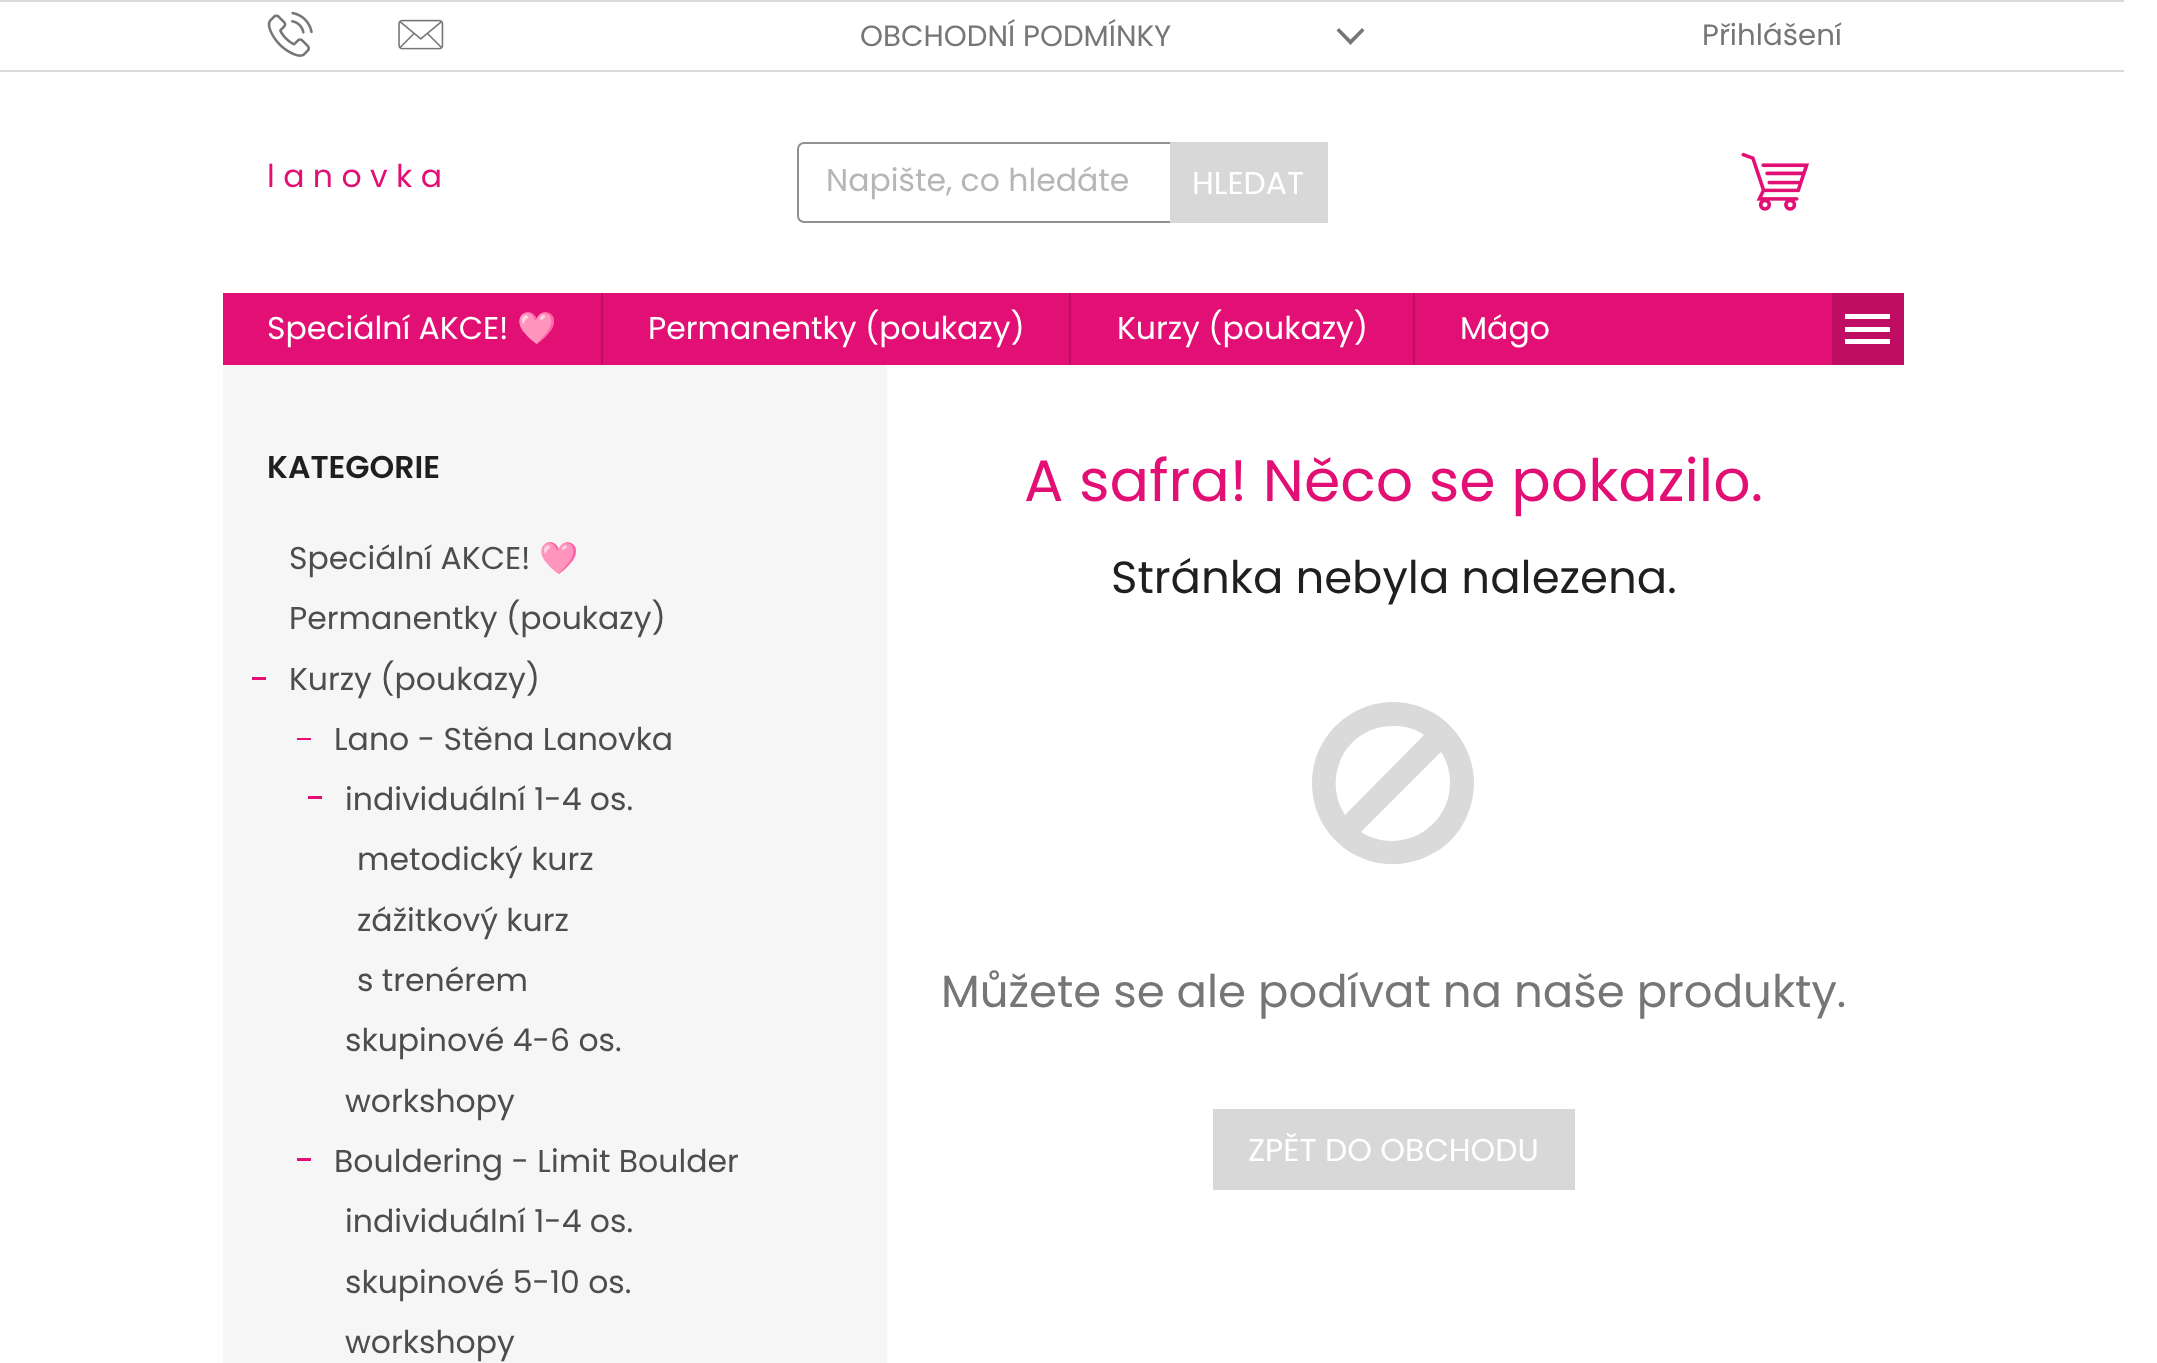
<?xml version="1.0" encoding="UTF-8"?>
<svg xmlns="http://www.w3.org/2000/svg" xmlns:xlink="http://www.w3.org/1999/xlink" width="2157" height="1363">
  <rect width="100%" height="100%" fill="#ffffff" />
  <rect width="2124" height="2" fill="#dadada" />
  <rect y="70" width="2124" height="2" fill="#dadada" />
  <image x="267" y="11" width="46" height="46" xlink:href="image1.png" />
  <image x="398" y="19" width="46" height="31" xlink:href="image2.png" />
  <path d="M 1336.5 30.5 l 2.5 -2.5 l 11.5 11.5 l 11.5 -11.5 l 2.5 2.5 l -14 14.5 z" fill="#767676" />
  <rect x="798" y="143" width="529" height="79" rx="6" fill="none" stroke="#919191" stroke-width="2" />
  <rect x="1170" y="142" width="158" height="81" fill="#d9d8d8" />
  <image x="1741" y="152" width="68" height="59" xlink:href="image3.png" />
  <rect x="223" y="293" width="1609" height="72" fill="#e21074" />
  <rect x="601" y="293" width="2" height="72" fill="#bf0d63" />
  <rect x="1069" y="293" width="2" height="72" fill="#bf0d63" />
  <rect x="1413" y="293" width="2" height="72" fill="#bf0d63" />
  <rect x="1832" y="293" width="72" height="72" fill="#bf0d63" />
  <path d="M 1845 344 h 45 v -5 h -45 z m 0 -12 h 45 v -5 h -45 z m 0 -18 v 5 h 45 v -5 z" fill="#ffffff" />
  <rect x="223" y="365" width="664" height="998" fill="#f6f6f6" />
  <rect x="252" y="677" width="14" height="3" fill="#e21074" />
  <rect x="297" y="738" width="14" height="2" fill="#e21074" />
  <rect x="308" y="796" width="14" height="3" fill="#e21074" />
  <rect x="297" y="1158" width="14" height="3" fill="#e21074" />
  <path d="M 1450 783 c 0 -11 -3 -22 -9 -31 l -80 80 c 38 24 89 -3 89 -49 z m -105 32 l 79 -80 c -8 -6 -19 -9 -29 -9 c -47 -2 -75 50 -50 89 z m 129 -32 c 0 16 -5 32 -14 46 c -8 12 -19 21 -32 27 c -54 26 -116 -13 -116 -73 c 0 -59 62 -99 116 -73 c 13 6 24 16 32 28 c 9 13 14 29 14 45 z" fill="#dadada" />
  <rect x="1213" y="1109" width="362" height="81" fill="#d9d8d8" />
  <text x="860" y="46" style="font-family: Poppins; font-size: 29.25px; fill: #767676">OBCHODNÍ PODMÍNKY</text>
  <text x="1702" y="45" style="font-family: Poppins; font-size: 29.25px; fill: #767676">Přihlášení</text>
  <text x="267" y="187" style="font-family: Poppins; font-size: 31.5px; fill: #e21074">l a n o v k a</text>
  <text x="826" y="191" style="font-family: Poppins; font-size: 31.5px; fill: #b6b6b6">Napište, co hledáte</text>
  <text x="1192" y="194" style="font-family: Poppins; font-size: 31.5px; fill: #ffffff">HLEDAT</text>
  <text x="267" y="339" style="font-family: Poppins; font-size: 31.5px; fill: #ffffff">Speciální AKCE!</text>
  <text x="517" y="339" style="font-family: Noto Color Emoji; font-size: 31.5px; fill: #ffffff">🩷</text>
  <text x="648" y="339" style="font-family: Poppins; font-size: 31.5px; fill: #ffffff">Permanentky (poukazy)</text>
  <text x="1117" y="339" style="font-family: Poppins; font-size: 31.5px; fill: #ffffff">Kurzy (poukazy)</text>
  <text x="1460" y="339" style="font-family: Poppins; font-size: 31.5px; fill: #ffffff">Mágo</text>
  <text x="267" y="478" style="font-family: Poppins; font-size: 31.5px; font-weight: 600; fill: #1f1f1f">KATEGORIE</text>
  <text x="289" y="569" style="font-family: Poppins; font-size: 31.5px; fill: #4d4d4d">Speciální AKCE!</text>
  <text x="539" y="569" style="font-family: Noto Color Emoji; font-size: 31.5px; fill: #4d4d4d">🩷</text>
  <text x="289" y="629" style="font-family: Poppins; font-size: 31.5px; fill: #4d4d4d">Permanentky (poukazy)</text>
  <text x="289" y="690" style="font-family: Poppins; font-size: 31.5px; fill: #4d4d4d">Kurzy (poukazy)</text>
  <text x="334" y="750" style="font-family: Poppins; font-size: 31.5px; fill: #4d4d4d">Lano - Stěna Lanovka</text>
  <text x="345" y="810" style="font-family: Poppins; font-size: 31.5px; fill: #4d4d4d">individuální 1-4 os.</text>
  <text x="357" y="870" style="font-family: Poppins; font-size: 31.5px; fill: #4d4d4d">metodický kurz</text>
  <text x="357" y="931" style="font-family: Poppins; font-size: 31.5px; fill: #4d4d4d">zážitkový kurz</text>
  <text x="357" y="991" style="font-family: Poppins; font-size: 31.5px; fill: #4d4d4d">s trenérem</text>
  <text x="345" y="1051" style="font-family: Poppins; font-size: 31.5px; fill: #4d4d4d">skupinové 4-6 os.</text>
  <text x="345" y="1112" style="font-family: Poppins; font-size: 31.5px; fill: #4d4d4d">workshopy</text>
  <text x="334" y="1172" style="font-family: Poppins; font-size: 31.5px; fill: #4d4d4d">Bouldering - Limit Boulder</text>
  <text x="345" y="1232" style="font-family: Poppins; font-size: 31.5px; fill: #4d4d4d">individuální 1-4 os.</text>
  <text x="345" y="1293" style="font-family: Poppins; font-size: 31.5px; fill: #4d4d4d">skupinové 5-10 os.</text>
  <text x="345" y="1353" style="font-family: Poppins; font-size: 31.5px; fill: #4d4d4d">workshopy</text>
  <text x="1024" y="501" style="font-family: Poppins; font-size: 58.5px; fill: #e21074">A safra! Něco se pokazilo.</text>
  <text x="1111" y="593" style="font-family: Poppins; font-size: 45px; fill: #1f1f1f">Stránka nebyla nalezena.</text>
  <text x="941" y="1007" style="font-family: Poppins; font-size: 45px; fill: #767676">Můžete se ale podívat na naše produkty.</text>
  <text x="1248" y="1161" style="font-family: Poppins; font-size: 31.5px; fill: #ffffff">ZPĚT DO OBCHODU</text>
</svg>
